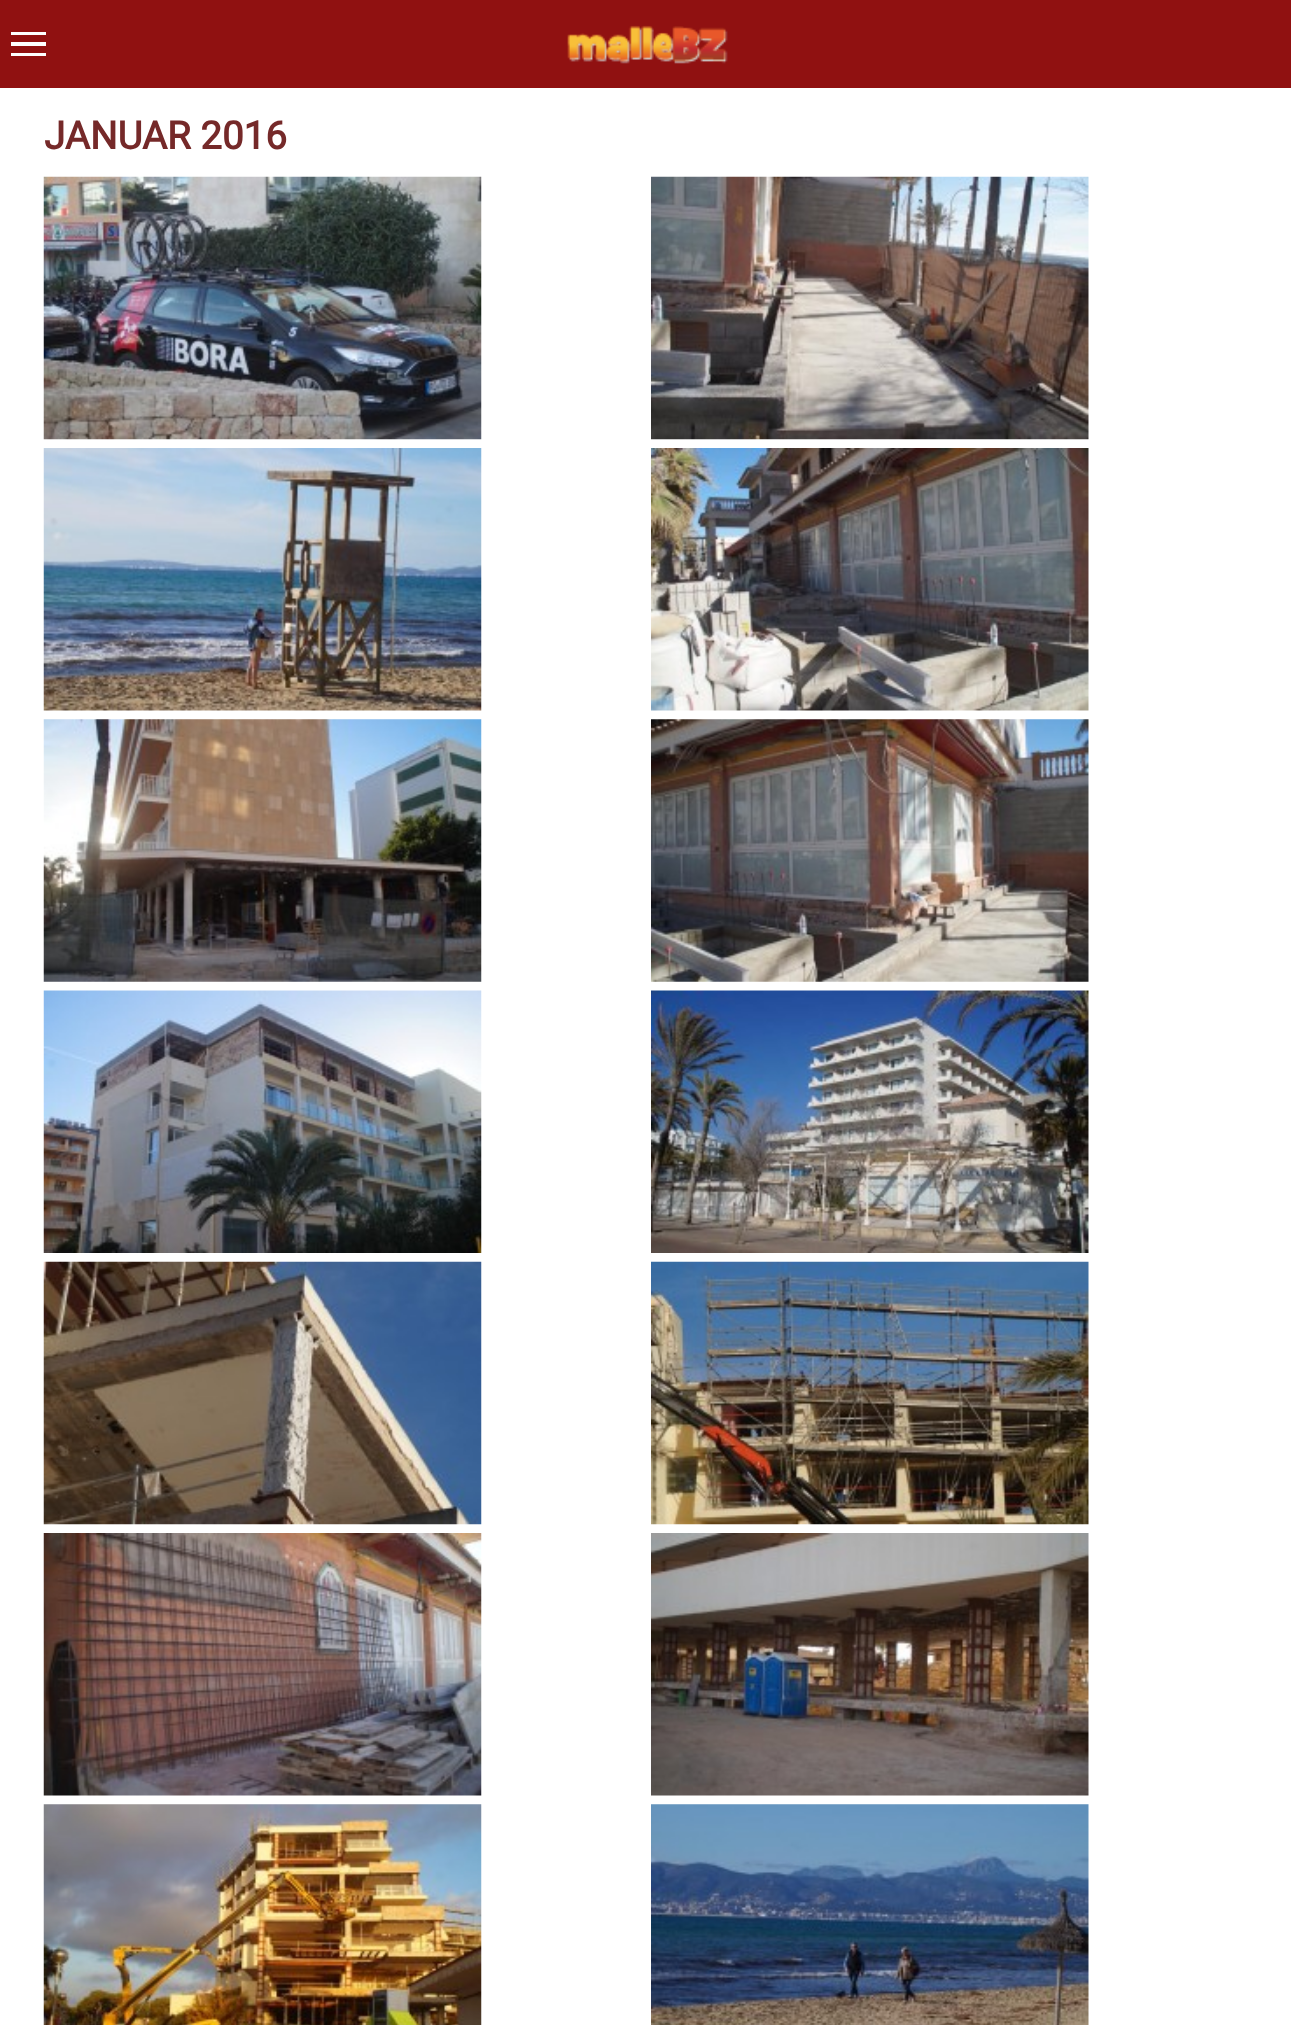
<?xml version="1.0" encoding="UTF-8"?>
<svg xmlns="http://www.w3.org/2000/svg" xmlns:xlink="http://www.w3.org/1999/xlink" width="1291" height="2025">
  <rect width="100%" height="100%" fill="#ffffff" />
  <rect width="1291" height="88" fill="#901111" />
  <rect x="11" y="32" width="35" height="3" fill="#ffffff" />
  <rect x="11" y="42" width="35" height="4" fill="#ffffff" />
  <rect x="11" y="53" width="35" height="3" fill="#ffffff" />
  <image x="567" y="25" width="161" height="39" xlink:href="image1.png" />
  <image x="43" y="176" width="439" height="264" xlink:href="image2.png" />
  <image x="651" y="176" width="438" height="264" xlink:href="image3.png" />
  <image x="43" y="448" width="439" height="263" xlink:href="image4.png" />
  <image x="651" y="448" width="438" height="263" xlink:href="image5.png" />
  <image x="43" y="719" width="439" height="263" xlink:href="image6.png" />
  <image x="651" y="719" width="438" height="263" xlink:href="image7.png" />
  <image x="43" y="990" width="439" height="263" xlink:href="image8.png" />
  <image x="651" y="990" width="438" height="263" xlink:href="image9.png" />
  <image x="43" y="1261" width="439" height="264" xlink:href="image10.png" />
  <image x="651" y="1261" width="438" height="264" xlink:href="image11.png" />
  <image x="43" y="1533" width="439" height="263" xlink:href="image12.png" />
  <image x="651" y="1533" width="438" height="263" xlink:href="image13.png" />
  <image x="43" y="1804" width="439" height="221" xlink:href="image14.png" />
  <image x="651" y="1804" width="438" height="221" xlink:href="image15.png" />
  <text x="44" y="149" style="font-family: Roboto; font-size: 38.5px; font-weight: bold; fill: #752929">JANUAR 2016</text>
</svg>
